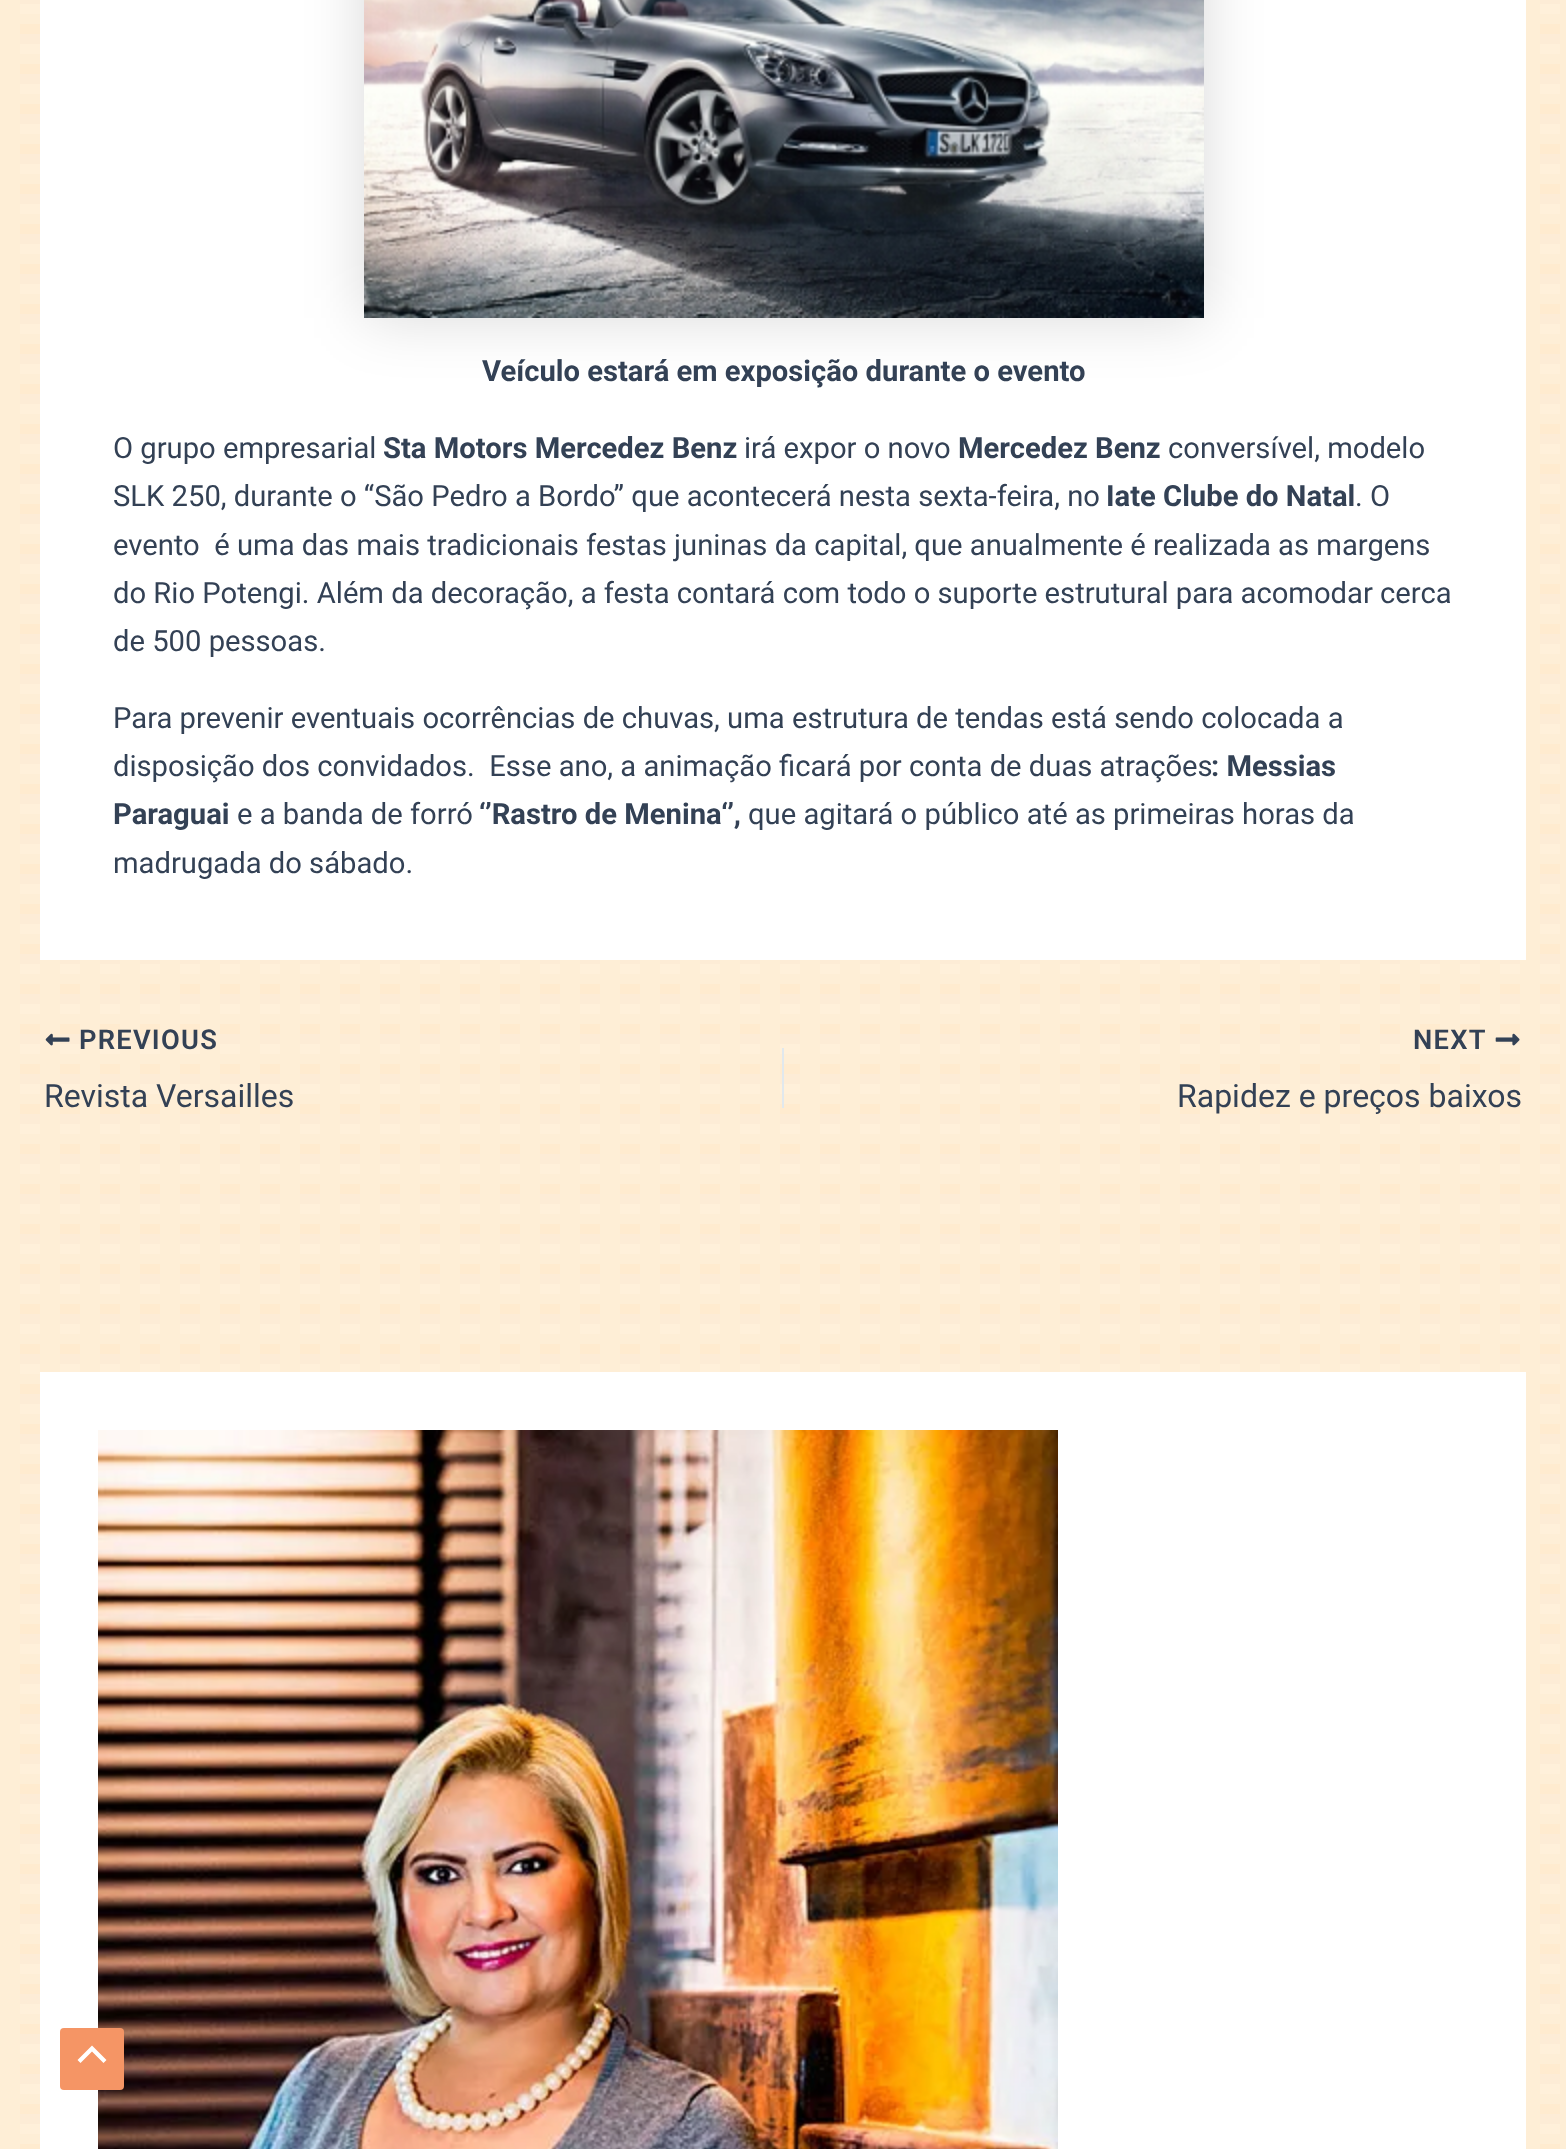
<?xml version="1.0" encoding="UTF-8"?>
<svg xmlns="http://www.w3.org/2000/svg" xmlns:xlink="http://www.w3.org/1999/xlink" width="1566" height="2149">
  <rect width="100%" height="100%" fill="#ffebcf" />
  <image x="20" y="0" width="1540" height="2144" xlink:href="image1.png" />
  <image x="0" y="0" width="1566" height="2149" xlink:href="image2.png" />
  <rect x="40" width="1486" height="960" fill="#ffffff" />
  <rect x="364" y="-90" width="840" height="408" fill="#000000" fill-opacity="0.15" filter="blur(30px)" />
  <image x="364" y="0" width="840" height="318" xlink:href="image3.png" />
  <image x="45" y="1033" width="25" height="13" xlink:href="image4.png" />
  <rect x="782" y="1048" width="2" height="60" fill="#e1e8ed" />
  <image x="1495" y="1033" width="25" height="13" xlink:href="image5.png" />
  <rect x="40" y="1372" width="1486" height="777" fill="#ffffff" />
  <image x="98" y="1430" width="960" height="719" xlink:href="image6.png" />
  <rect x="60" y="2028" width="64" height="62" rx="4" fill="#f59565" />
  <path d="M 106.5 2060 l -14.5 -14.5 l -14.5 14.5 l 3 3 l 11.5 -11.5 l 11.5 11.5 z" fill="#ffffff" />
  <text x="482" y="381" style="font-family: Roboto; font-size: 29.2px; font-weight: bold; fill: #334155">Veículo estará em exposição durante o evento</text>
  <text x="113" y="458" style="font-family: Roboto; font-size: 29.2px; fill: #334155">O grupo empresarial</text>
  <text x="383" y="458" style="font-family: Roboto; font-size: 29.2px; font-weight: bold; fill: #334155">Sta Motors Mercedez Benz</text>
  <text x="744" y="458" style="font-family: Roboto; font-size: 29.2px; fill: #334155">irá expor o novo</text>
  <text x="958" y="458" style="font-family: Roboto; font-size: 29.2px; font-weight: bold; fill: #334155">Mercedez Benz</text>
  <text x="1168" y="458" style="font-family: Roboto; font-size: 29.2px; fill: #334155">conversível, modelo</text>
  <text x="113" y="506" style="font-family: Roboto; font-size: 29.2px; fill: #334155">SLK 250, durante o “São Pedro a Bordo” que acontecerá nesta sexta-feira, no</text>
  <text x="1106" y="506" style="font-family: Roboto; font-size: 29.2px; font-weight: bold; fill: #334155">Iate Clube do Natal</text>
  <text x="1355" y="506" style="font-family: Roboto; font-size: 29.2px; fill: #334155">. O</text>
  <text x="113" y="555" style="font-family: Roboto; font-size: 29.2px; fill: #334155" xml:space="preserve">evento  é uma das mais tradicionais festas juninas da capital, que anualmente é realizada as margens</text>
  <text x="113" y="603" style="font-family: Roboto; font-size: 29.2px; fill: #334155">do Rio Potengi. Além da decoração, a festa contará com todo o suporte estrutural para acomodar cerca</text>
  <text x="113" y="651" style="font-family: Roboto; font-size: 29.2px; fill: #334155">de 500 pessoas.</text>
  <text x="113" y="728" style="font-family: Roboto; font-size: 29.2px; fill: #334155">Para prevenir eventuais ocorrências de chuvas, uma estrutura de tendas está sendo colocada a</text>
  <text x="113" y="776" style="font-family: Roboto; font-size: 29.2px; fill: #334155" xml:space="preserve">disposição dos convidados.  Esse ano, a animação ficará por conta de duas atrações</text>
  <text x="1211" y="776" style="font-family: Roboto; font-size: 29.2px; font-weight: bold; fill: #334155">: Messias</text>
  <text x="113" y="824" style="font-family: Roboto; font-size: 29.2px; font-weight: bold; fill: #334155">Paraguai</text>
  <text x="237" y="824" style="font-family: Roboto; font-size: 29.2px; fill: #334155">e a banda de forró</text>
  <text x="479" y="824" style="font-family: Roboto; font-size: 29.2px; font-weight: bold; fill: #334155">‘’Rastro de Menina‘’,</text>
  <text x="748" y="824" style="font-family: Roboto; font-size: 29.2px; fill: #334155">que agitará o público até as primeiras horas da</text>
  <text x="113" y="873" style="font-family: Roboto; font-size: 29.2px; fill: #334155">madrugada do sábado.</text>
  <text x="79" y="1049" style="font-family: Roboto; font-size: 27.25px; font-weight: 600; letter-spacing: 1.25px; fill: #334155">PREVIOUS</text>
  <text x="44" y="1107" style="font-family: Roboto; font-size: 32px; fill: #334155">Revista Versailles</text>
  <text x="1413" y="1049" style="font-family: Roboto; font-size: 27.25px; font-weight: 600; letter-spacing: 1.25px; fill: #334155">NEXT</text>
  <text x="1177" y="1107" style="font-family: Roboto; font-size: 32px; fill: #334155">Rapidez e preços baixos</text>
</svg>
